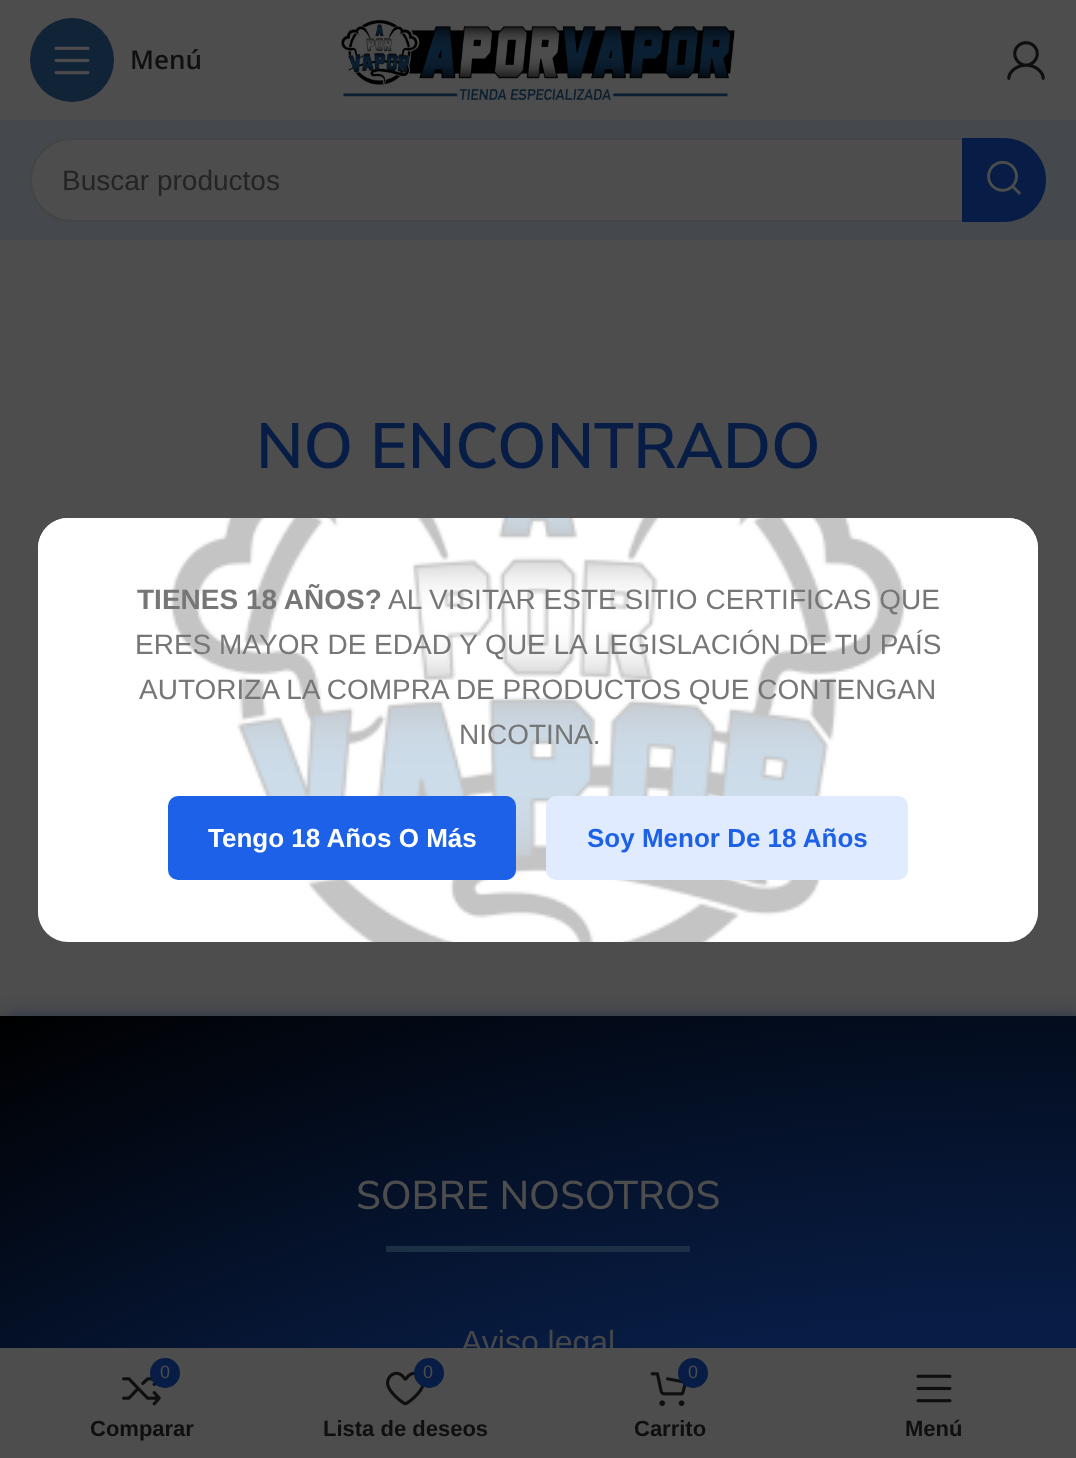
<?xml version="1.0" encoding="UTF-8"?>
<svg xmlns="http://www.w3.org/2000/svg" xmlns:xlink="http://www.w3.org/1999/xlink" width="1076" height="1458">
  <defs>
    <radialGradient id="g1" gradientUnits="userSpaceOnUse" cx="1076" cy="3440" r="2652"><stop offset="0" stop-color="#09080d" /><stop offset="0.19" stop-color="#081d45" /><stop offset="0.8" stop-color="#081d45" /><stop offset="1" stop-color="#000000" /></radialGradient>
  </defs>
  <rect width="100%" height="100%" fill="#4d4d4d" />
  <circle cx="72" cy="60" r="42" fill="#102337" />
  <image x="54" y="46" width="36" height="29" xlink:href="image1.png" />
  <image x="341" y="20" width="394" height="80" xlink:href="image2.png" />
  <image x="1007" y="41" width="38" height="39" xlink:href="image3.png" />
  <rect y="120" width="1076" height="120" fill="#45484c" />
  <rect x="30" y="138" width="1016" height="84" rx="42" fill="#4d4d4d" />
  <rect x="31" y="139" width="1014" height="82" rx="41" fill="none" stroke="#000000" stroke-opacity="0.1" stroke-width="2" />
  <path d="M 962 138 h 42 c 23 0 42 19 42 42 c 0 23 -19 42 -42 42 h -42 z" fill="#081d45" />
  <image x="987" y="160" width="34" height="35" xlink:href="image4.png" />
  <rect x="4" y="1016" width="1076" height="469" fill="#081d45" fill-opacity="0.55" filter="blur(9px)" />
  <rect y="1016" width="1076" height="332" fill="url(#g1)" />
  <rect x="386" y="1246" width="304" height="6" fill="#1b3044" />
  <rect x="38" y="518" width="1000" height="422" rx="30" fill="#ffffff" />
  <image x="38" y="518" width="1000" height="424" xlink:href="image5.png" />
  <rect x="168" y="796" width="348" height="84" rx="10" fill="#1c61e7" />
  <rect x="546" y="796" width="362" height="84" rx="10" fill="#e1ebff" />
  <text x="130" y="69" style="font-family: Open Sans; font-size: 26px; font-weight: 600; fill: #0f0f0f">Menú</text>
  <text x="62" y="190" style="font-family: Liberation Sans; font-size: 28px; fill: #242424">Buscar productos</text>
  <text x="256" y="468" style="font-family: Nunito Sans; font-size: 64px; font-weight: 600; fill: #081d45">NO ENCONTRADO</text>
  <text x="356" y="1209" style="font-family: Nunito Sans; font-size: 40px; font-weight: 500; fill: #4d4d4d">SOBRE NOSOTROS</text>
  <text x="461" y="1353" style="font-family: Liberation Sans; font-size: 32px; fill: #46474b">Aviso legal</text>
  <text x="137" y="609" style="font-family: Liberation Sans; font-size: 28px; font-weight: bold; fill: #767676">TIENES 18 AÑOS?</text>
  <text x="388" y="609" style="font-family: Liberation Sans; font-size: 28px; fill: #767676">AL VISITAR ESTE SITIO CERTIFICAS QUE</text>
  <text x="135" y="654" style="font-family: Liberation Sans; font-size: 28px; fill: #767676">ERES MAYOR DE EDAD Y QUE LA LEGISLACIÓN DE TU PAÍS</text>
  <text x="139" y="699" style="font-family: Liberation Sans; font-size: 28px; fill: #767676">AUTORIZA LA COMPRA DE PRODUCTOS QUE CONTENGAN</text>
  <text x="459" y="744" style="font-family: Liberation Sans; font-size: 28px; fill: #767676">NICOTINA.</text>
  <text x="208" y="847" style="font-family: Liberation Sans; font-size: 26px; font-weight: bold; fill: #ffffff">Tengo 18 Años O Más</text>
  <text x="587" y="847" style="font-family: Liberation Sans; font-size: 26px; font-weight: bold; fill: #1c61e7">Soy Menor De 18 Años</text>
  <rect y="1348" width="1076" height="110" fill="#4d4d4d" />
  <image x="122" y="1377" width="39" height="29" xlink:href="image6.png" />
  <circle cx="165" cy="1373" r="15" fill="#081d45" />
  <text x="160" y="1378" style="font-family: Liberation Sans; font-size: 18px; fill: #4d4d4d">0</text>
  <text x="90" y="1436" style="font-family: Liberation Sans; font-size: 22px; font-weight: bold; fill: #0f0f0f">Comparar</text>
  <image x="386" y="1371" width="38" height="35" xlink:href="image7.png" />
  <circle cx="429" cy="1373" r="15" fill="#081d45" />
  <text x="423" y="1378" style="font-family: Liberation Sans; font-size: 18px; fill: #4d4d4d">0</text>
  <text x="323" y="1436" style="font-family: Liberation Sans; font-size: 22px; font-weight: bold; fill: #0f0f0f">Lista de deseos</text>
  <image x="650" y="1372" width="37" height="34" xlink:href="image8.png" />
  <circle cx="693" cy="1373" r="15" fill="#081d45" />
  <text x="688" y="1378" style="font-family: Liberation Sans; font-size: 18px; fill: #4d4d4d">0</text>
  <text x="634" y="1436" style="font-family: Liberation Sans; font-size: 22px; font-weight: bold; fill: #0f0f0f">Carrito</text>
  <image x="916" y="1374" width="36" height="29" xlink:href="image9.png" />
  <text x="905" y="1436" style="font-family: Liberation Sans; font-size: 22px; font-weight: bold; fill: #0f0f0f">Menú</text>
</svg>
